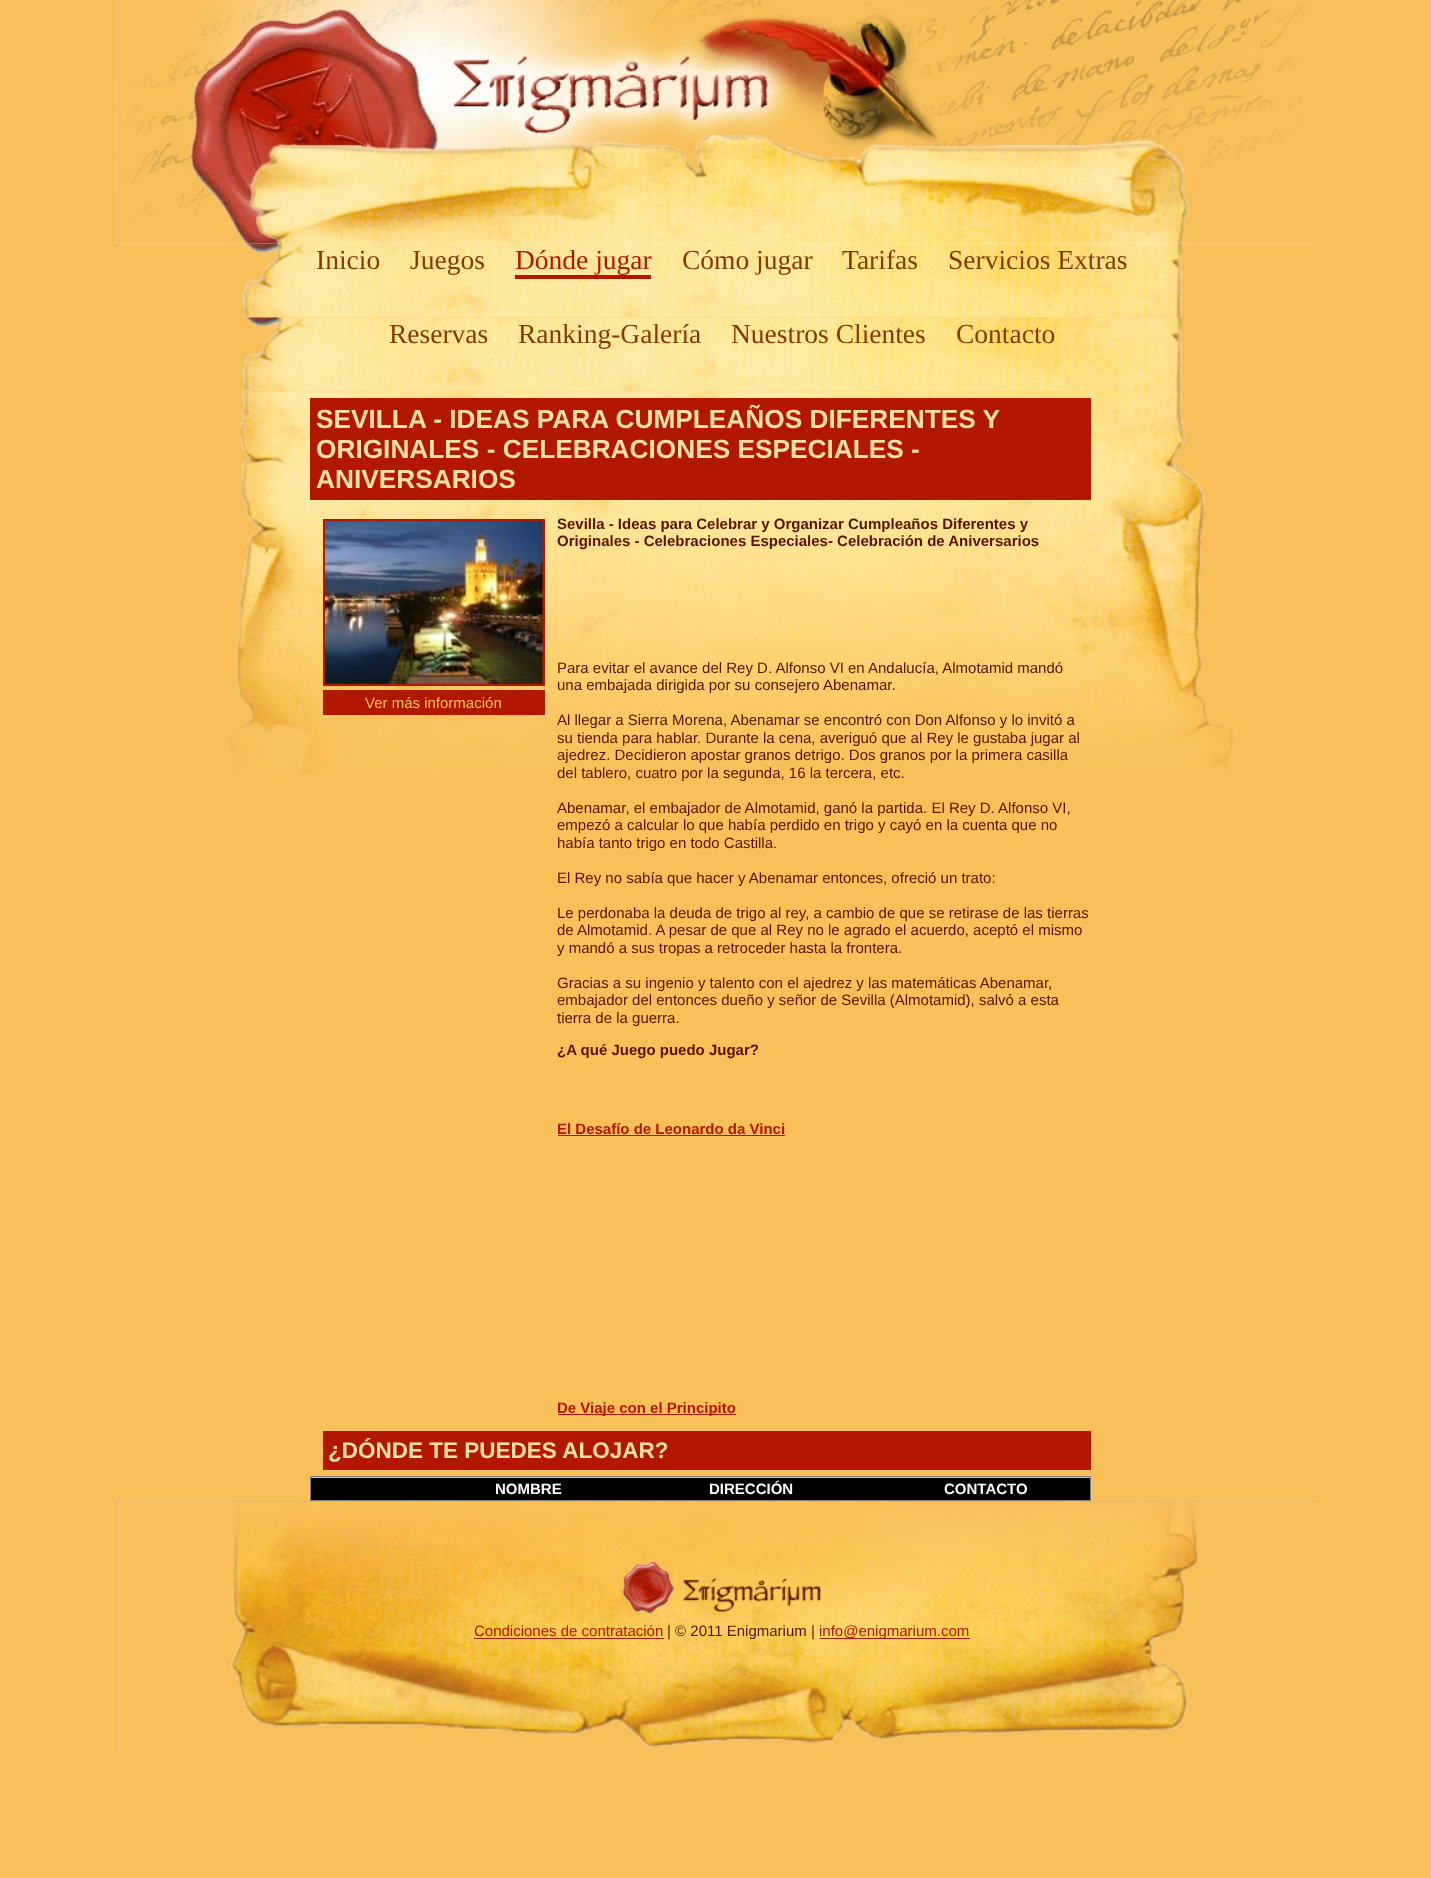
<?xml version="1.0" encoding="UTF-8"?>
<svg xmlns="http://www.w3.org/2000/svg" xmlns:xlink="http://www.w3.org/1999/xlink" width="1431" height="1878">
  <rect width="100%" height="100%" fill="#f9bf58" />
  <rect x="116" width="1200" height="244" fill="#f3f3f3" />
  <image x="116" y="0" width="1200" height="244" xlink:href="image1.png" />
  <image x="236" y="244" width="958" height="74" xlink:href="image2.png" />
  <rect x="515" y="275" width="136" height="4" fill="#b21800" />
  <image x="228" y="391" width="1007" height="384" xlink:href="image4.png" />
  <image x="236" y="317" width="958" height="75" xlink:href="image3.png" />
  <rect x="310" y="398" width="781" height="102" fill="#b21800" />
  <rect x="324.5" y="520.5" width="219" height="164" fill="none" stroke="#b21800" stroke-width="3" />
  <image x="325" y="521" width="218" height="163" xlink:href="image5.png" />
  <rect x="323" y="690" width="222" height="25" fill="#b21800" />
  <rect x="558" y="1135" width="227" height="1" fill="#b21800" />
  <rect x="558" y="1414" width="178" height="1" fill="#b21800" />
  <rect x="323" y="1431" width="768" height="39" fill="#b21800" />
  <rect x="310" y="1476" width="781" height="1" fill="#808080" />
  <rect x="1090" y="1476" width="1" height="25" fill="#808080" />
  <rect x="310" y="1500" width="781" height="1" fill="#808080" />
  <rect x="310" y="1476" width="1" height="25" fill="#808080" />
  <rect x="311" y="1478" width="779" height="22" fill="#000000" />
  <rect x="116" y="1501" width="1200" height="250" fill="#aaaaaa" />
  <image x="116" y="1501" width="1200" height="250" xlink:href="image6.png" />
  <image x="622" y="1561" width="200" height="53" xlink:href="image7.png" />
  <rect x="474" y="1638" width="190" height="1" fill="#b21800" />
  <rect x="820" y="1638" width="150" height="1" fill="#b21800" />
  <text x="316" y="269" style="font-family: Liberation Serif; font-size: 27.5px; fill: #873a00">Inicio</text>
  <text x="410" y="269" style="font-family: Liberation Serif; font-size: 27.5px; fill: #873a00">Juegos</text>
  <text x="515" y="269" style="font-family: Liberation Serif; font-size: 27.5px; fill: #b21800">Dónde jugar</text>
  <text x="682" y="269" style="font-family: Liberation Serif; font-size: 27.5px; fill: #873a00">Cómo jugar</text>
  <text x="842" y="269" style="font-family: Liberation Serif; font-size: 27.5px; fill: #873a00">Tarifas</text>
  <text x="948" y="269" style="font-family: Liberation Serif; font-size: 27.5px; fill: #873a00">Servicios Extras</text>
  <text x="389" y="343" style="font-family: Liberation Serif; font-size: 27.5px; fill: #873a00">Reservas</text>
  <text x="518" y="343" style="font-family: Liberation Serif; font-size: 27.5px; fill: #873a00">Ranking-Galería</text>
  <text x="731" y="343" style="font-family: Liberation Serif; font-size: 27.5px; fill: #873a00">Nuestros Clientes</text>
  <text x="956" y="343" style="font-family: Liberation Serif; font-size: 27.5px; fill: #873a00">Contacto</text>
  <text x="316" y="428" style="font-family: Liberation Sans; font-size: 26.25px; font-weight: bold; fill: #f7e0a7">SEVILLA - IDEAS PARA CUMPLEAÑOS DIFERENTES Y</text>
  <text x="316" y="458" style="font-family: Liberation Sans; font-size: 26.25px; font-weight: bold; fill: #f7e0a7">ORIGINALES - CELEBRACIONES ESPECIALES -</text>
  <text x="316" y="488" style="font-family: Liberation Sans; font-size: 26.25px; font-weight: bold; fill: #f7e0a7">ANIVERSARIOS</text>
  <text x="365" y="708" style="font-family: Liberation Sans; font-size: 15px; fill: #f9bf58">Ver más información</text>
  <text x="557" y="529" style="font-family: Liberation Sans; font-size: 15px; font-weight: bold; fill: #591300">Sevilla - Ideas para Celebrar y Organizar Cumpleaños Diferentes y</text>
  <text x="557" y="546" style="font-family: Liberation Sans; font-size: 15px; font-weight: bold; fill: #591300">Originales - Celebraciones Especiales- Celebración de Aniversarios</text>
  <text x="557" y="673" style="font-family: Liberation Sans; font-size: 15px; fill: #591300">Para evitar el avance del Rey D. Alfonso VI en Andalucía, Almotamid mandó</text>
  <text x="557" y="690" style="font-family: Liberation Sans; font-size: 15px; fill: #591300">una embajada dirigida por su consejero Abenamar.</text>
  <text x="557" y="725" style="font-family: Liberation Sans; font-size: 15px; fill: #591300">Al llegar a Sierra Morena, Abenamar se encontró con Don Alfonso y lo invitó a</text>
  <text x="557" y="743" style="font-family: Liberation Sans; font-size: 15px; fill: #591300">su tienda para hablar. Durante la cena, averiguó que al Rey le gustaba jugar al</text>
  <text x="557" y="760" style="font-family: Liberation Sans; font-size: 15px; fill: #591300">ajedrez. Decidieron apostar granos detrigo. Dos granos por la primera casilla</text>
  <text x="557" y="778" style="font-family: Liberation Sans; font-size: 15px; fill: #591300">del tablero, cuatro por la segunda, 16 la tercera, etc.</text>
  <text x="557" y="813" style="font-family: Liberation Sans; font-size: 15px; fill: #591300">Abenamar, el embajador de Almotamid, ganó la partida. El Rey D. Alfonso VI,</text>
  <text x="557" y="830" style="font-family: Liberation Sans; font-size: 15px; fill: #591300">empezó a calcular lo que había perdido en trigo y cayó en la cuenta que no</text>
  <text x="557" y="848" style="font-family: Liberation Sans; font-size: 15px; fill: #591300">había tanto trigo en todo Castilla.</text>
  <text x="557" y="883" style="font-family: Liberation Sans; font-size: 15px; fill: #591300">El Rey no sabía que hacer y Abenamar entonces, ofreció un trato:</text>
  <text x="557" y="918" style="font-family: Liberation Sans; font-size: 15px; fill: #591300">Le perdonaba la deuda de trigo al rey, a cambio de que se retirase de las tierras</text>
  <text x="557" y="935" style="font-family: Liberation Sans; font-size: 15px; fill: #591300">de Almotamid. A pesar de que al Rey no le agrado el acuerdo, aceptó el mismo</text>
  <text x="557" y="953" style="font-family: Liberation Sans; font-size: 15px; fill: #591300">y mandó a sus tropas a retroceder hasta la frontera.</text>
  <text x="557" y="988" style="font-family: Liberation Sans; font-size: 15px; fill: #591300">Gracias a su ingenio y talento con el ajedrez y las matemáticas Abenamar,</text>
  <text x="557" y="1005" style="font-family: Liberation Sans; font-size: 15px; fill: #591300">embajador del entonces dueño y señor de Sevilla (Almotamid), salvó a esta</text>
  <text x="557" y="1023" style="font-family: Liberation Sans; font-size: 15px; fill: #591300">tierra de la guerra.</text>
  <text x="557" y="1055" style="font-family: Liberation Sans; font-size: 15px; font-weight: bold; fill: #591300">¿A qué Juego puedo Jugar?</text>
  <text x="557" y="1134" style="font-family: Liberation Sans; font-size: 15px; font-weight: bold; fill: #b21800">El Desafío de Leonardo da Vinci</text>
  <text x="557" y="1413" style="font-family: Liberation Sans; font-size: 15px; font-weight: bold; fill: #b21800">De Viaje con el Principito</text>
  <text x="328" y="1458" style="font-family: Liberation Sans; font-size: 22.5px; font-weight: bold; fill: #f7e0a7">¿DÓNDE TE PUEDES ALOJAR?</text>
  <text x="495" y="1494" style="font-family: Liberation Sans; font-size: 15px; font-weight: bold; fill: #ffffff">NOMBRE</text>
  <text x="709" y="1494" style="font-family: Liberation Sans; font-size: 15px; font-weight: bold; fill: #ffffff">DIRECCIÓN</text>
  <text x="944" y="1494" style="font-family: Liberation Sans; font-size: 15px; font-weight: bold; fill: #ffffff">CONTACTO</text>
  <text x="474" y="1636" style="font-family: Liberation Sans; font-size: 15px; fill: #b21800">Condiciones de contratación</text>
  <text x="667" y="1636" style="font-family: Liberation Sans; font-size: 15px; fill: #591300">| © 2011 Enigmarium |</text>
  <text x="819" y="1636" style="font-family: Liberation Sans; font-size: 15px; fill: #b21800">info@enigmarium.com</text>
</svg>
